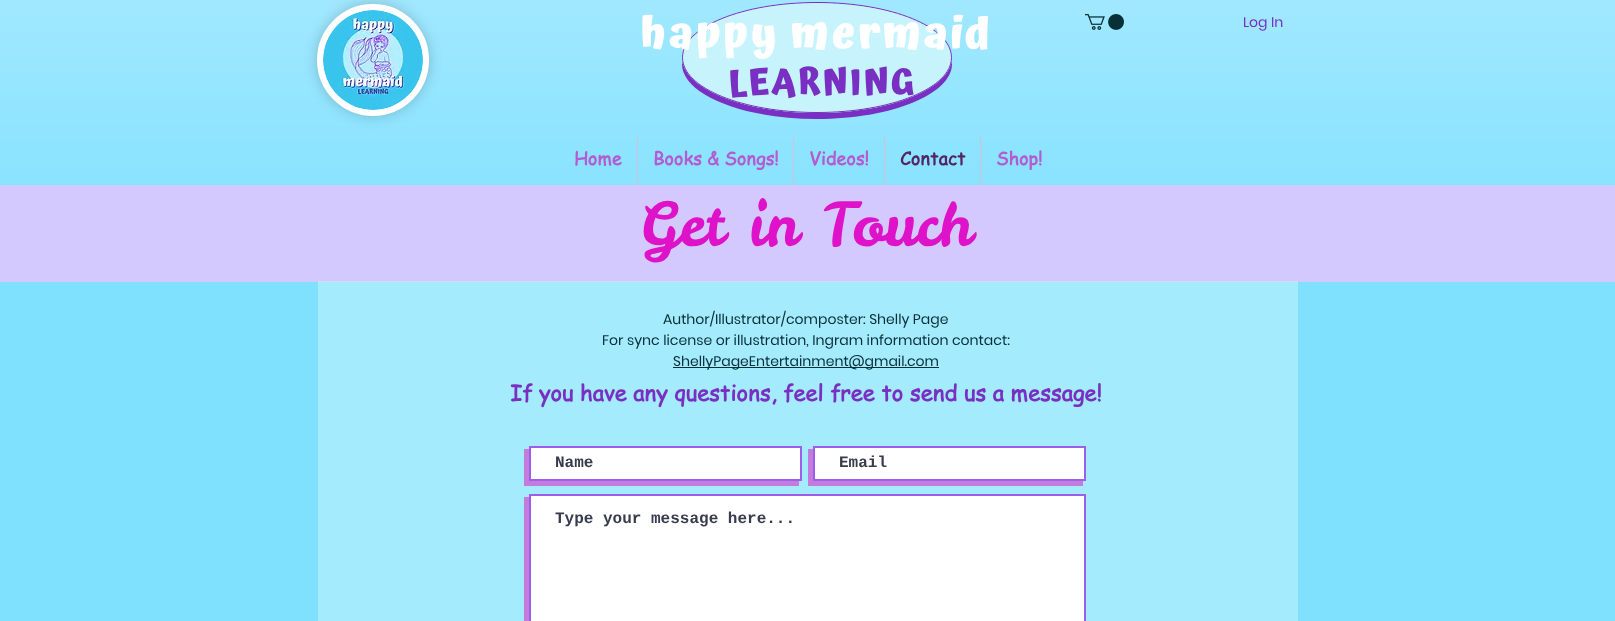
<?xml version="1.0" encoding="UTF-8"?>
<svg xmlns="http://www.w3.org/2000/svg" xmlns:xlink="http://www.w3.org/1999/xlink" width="1615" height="621">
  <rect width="100%" height="100%" fill="#80e1ff" />
  <image x="0" y="0" width="1615" height="185" xlink:href="image1.png" />
  <rect x="317" y="4" width="112" height="112" rx="56" fill="#000000" fill-opacity="0.2" filter="blur(7px)" />
  <circle cx="373" cy="60" r="53" fill="#ffffff" stroke="#ffffff" stroke-width="6" />
  <image x="323" y="10" width="100" height="100" xlink:href="image2.png" />
  <image x="1085" y="14" width="39" height="16" xlink:href="image3.png" />
  <path d="M 682 60 v 4 c 0 30 60 55 135 55 c 75 0 135 -25 135 -55 v -4 c -4 30 -63 53 -135 53 c -72 0 -131 -23 -135 -53 z" fill="#782fc2" />
  <ellipse cx="817" cy="57.5" rx="135" ry="55.5" fill="#c7f4fc" />
  <path d="M 817 2.5 c 74.5 0 134.5 24.5 134.5 55 c 0 30.5 -60 55 -134.5 55 c -74.5 0 -134.5 -24.5 -134.5 -55 c 0 -30.5 60 -55 134.5 -55 z" fill="none" stroke="#782fc2" />
  <rect x="637" y="135" width="1" height="50" fill="#d8bde2" />
  <rect x="793" y="135" width="1" height="50" fill="#d8bde2" />
  <rect x="884" y="135" width="1" height="50" fill="#d8bde2" />
  <rect x="980" y="135" width="1" height="50" fill="#d8bde2" />
  <rect y="185" width="1615" height="97" fill="#d4c9ff" />
  <rect x="318" y="281" width="980" height="1" fill="#cedffe" />
  <rect x="318" y="282" width="980" height="339" fill="#a4ebfe" />
  <rect x="673" y="367" width="266" height="1" fill="#092f37" />
  <path d="M 524 449 v 37 h 275 v -5 h -270 v -32 z" fill="#c37bdd" />
  <rect x="530" y="447" width="271" height="33" fill="#ffffff" stroke="#9d5feb" stroke-width="2" />
  <path d="M 808 449 v 37 h 275 v -5 h -270 v -32 z" fill="#c37bdd" />
  <rect x="814" y="447" width="271" height="33" fill="#ffffff" stroke="#9d5feb" stroke-width="2" />
  <path d="M 524 497 v 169 h 559 v -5 h -554 v -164 z" fill="#c37bdd" />
  <rect x="530" y="495" width="555" height="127" fill="#ffffff" stroke="#9d5feb" stroke-width="2" />
  <text x="640" y="48" style="font-family: Atma; font-size: 44px; font-weight: bold; letter-spacing: 2.25px; fill: #ffffff">happy mermaid</text>
  <text x="1243" y="27" style="font-family: Poppins; font-size: 14px; fill: #782fc2">Log In</text>
  <text x="728" y="94" style="font-family: Atma; font-size: 36px; font-weight: bold; letter-spacing: 1.75px; fill: #782fc2">LEARNING</text>
  <text x="574" y="165" style="font-family: 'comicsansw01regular'; font-size: 18px; font-weight: bold; fill: #b45ad3">Home</text>
  <text x="653" y="165" style="font-family: 'comicsansw01regular'; font-size: 18px; font-weight: bold; fill: #b45ad3">Books &amp; Songs!</text>
  <text x="809" y="165" style="font-family: 'comicsansw01regular'; font-size: 18px; font-weight: bold; fill: #b45ad3">Videos!</text>
  <text x="900" y="165" style="font-family: 'comicsansw01regular'; font-size: 18px; font-weight: bold; fill: #532563">Contact</text>
  <text x="996" y="165" style="font-family: 'comicsansw01regular'; font-size: 18px; font-weight: bold; fill: #b45ad3">Shop!</text>
  <text x="640" y="246" style="font-family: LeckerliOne; font-size: 60px; fill: #de12c9">Get in Touch</text>
  <text x="663" y="324" style="font-family: Poppins; font-size: 14px; fill: #092f37">Author/Illustrator/composter: Shelly Page</text>
  <text x="602" y="345" style="font-family: Poppins; font-size: 14px; fill: #092f37">For sync license or illustration, Ingram information contact:</text>
  <text x="673" y="366" style="font-family: Poppins; font-size: 14px; fill: #092f37">ShellyPageEntertainment@gmail.com</text>
  <text x="510" y="401" style="font-family: 'comicsansw01regular'; font-size: 22px; font-weight: bold; fill: #782fc2">If you have any questions, feel free to send us a message!</text>
  <text x="555" y="467" style="font-family: Liberation Mono; font-size: 16px; font-weight: bold; fill: #373b4d">Name</text>
  <text x="839" y="467" style="font-family: Liberation Mono; font-size: 16px; font-weight: bold; fill: #373b4d">Email</text>
  <text x="555" y="523" style="font-family: Liberation Mono; font-size: 16px; font-weight: bold; fill: #373b4d">Type your message here...</text>
</svg>
